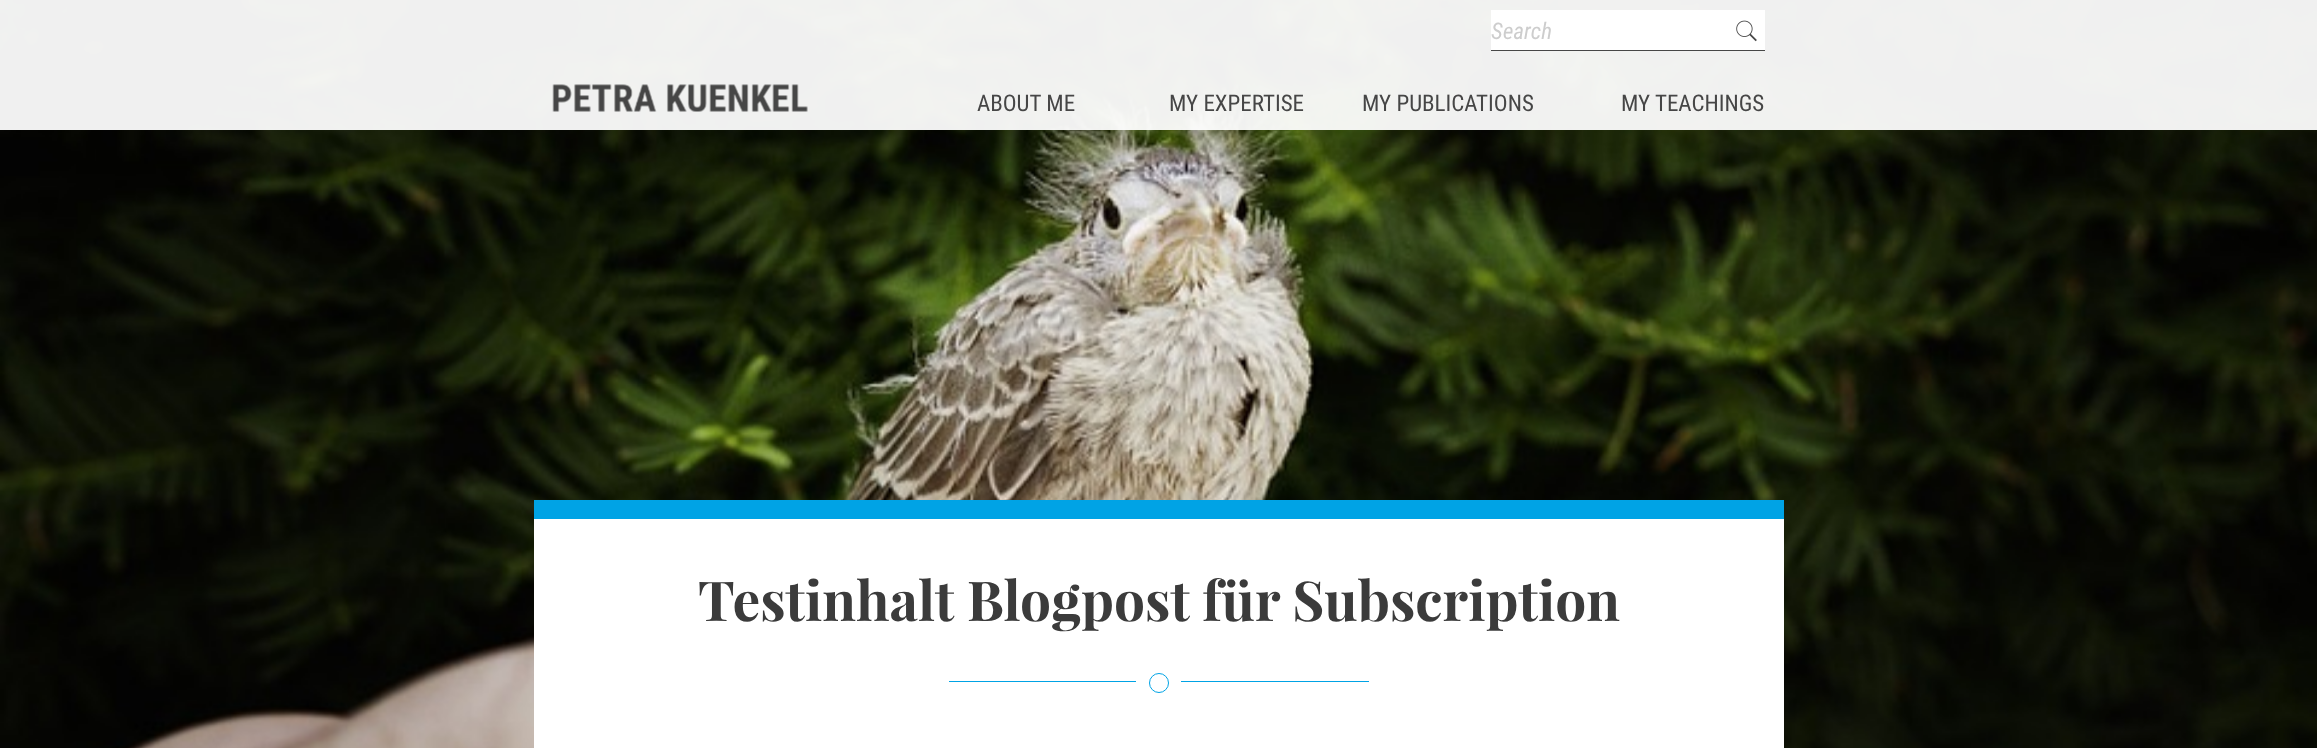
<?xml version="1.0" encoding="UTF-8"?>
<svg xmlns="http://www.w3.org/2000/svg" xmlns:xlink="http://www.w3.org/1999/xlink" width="2317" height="748">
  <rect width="100%" height="100%" fill="#ffffff" />
  <image x="0" y="0" width="2317" height="748" xlink:href="image1.png" />
  <rect width="2317" height="130" fill="#ffffff" fill-opacity="0.94" />
  <image x="552" y="84" width="256" height="28" xlink:href="image2.png" />
  <rect x="1491" y="10" width="274" height="40" fill="#ffffff" fill-opacity="0.94" />
  <rect x="1491" y="50" width="274" height="1" fill="#474747" />
  <image x="1736" y="20" width="21" height="22" xlink:href="image3.png" />
  <rect x="534" y="519" width="1250" height="229" fill="#ffffff" />
  <rect x="534" y="500" width="1250" height="19" fill="#00a3e5" />
  <rect x="949" y="681" width="187" height="1" fill="#00a3e5" />
  <circle cx="1159" cy="683" r="9.5" fill="none" stroke="#00a3e5" />
  <rect x="1181" y="681" width="188" height="1" fill="#00a3e5" />
  <text x="1491" y="39" style="font-family: Roboto Condensed; font-size: 23px; font-style: italic; fill: #cdcdcd">Search</text>
  <text x="977" y="111" style="font-family: Roboto Condensed; font-size: 23px; fill: #464646">ABOUT ME</text>
  <text x="1169" y="111" style="font-family: Roboto Condensed; font-size: 23px; fill: #464646">MY EXPERTISE</text>
  <text x="1362" y="111" style="font-family: Roboto Condensed; font-size: 23px; fill: #464646">MY PUBLICATIONS</text>
  <text x="1621" y="111" style="font-family: Roboto Condensed; font-size: 23px; fill: #464646">MY TEACHINGS</text>
  <text x="698" y="621" style="font-family: Playfair Display; font-size: 55px; font-weight: bold; fill: #3b3b3b">Testinhalt Blogpost für Subscription</text>
</svg>
